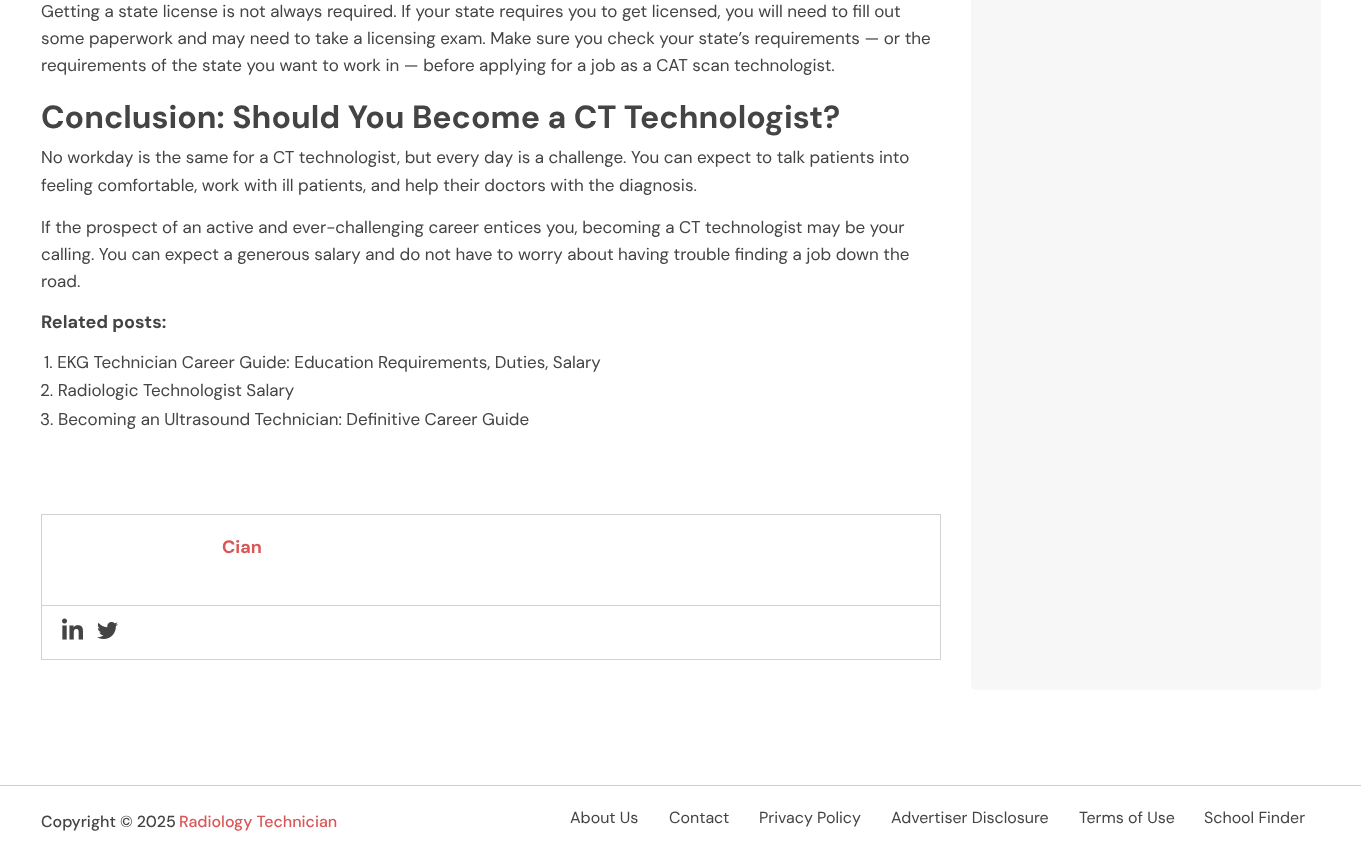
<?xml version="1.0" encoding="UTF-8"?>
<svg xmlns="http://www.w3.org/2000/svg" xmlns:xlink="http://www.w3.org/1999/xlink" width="1361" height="861">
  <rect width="100%" height="100%" fill="#ffffff" />
  <rect x="41.5" y="514.5" width="899" height="91" fill="none" stroke="#d5d1d1" />
  <rect x="41.5" y="605.5" width="899" height="54" fill="none" stroke="#d5d1d1" />
  <image x="62" y="618" width="21" height="22" xlink:href="image1.png" />
  <image x="97" y="622" width="21" height="17" xlink:href="image2.png" />
  <rect x="971" y="-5" width="350" height="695" rx="5" fill="#f7f7f7" />
  <rect y="785" width="1361" height="1" fill="#cecece" />
  <text x="41" y="17" style="font-family: DM Sans; font-size: 17px; fill: #444444">Getting a state license is not always required. If your state requires you to get licensed, you will need to fill out</text>
  <text x="41" y="44" style="font-family: DM Sans; font-size: 17px; fill: #444444">some paperwork and may need to take a licensing exam. Make sure you check your state’s requirements — or the</text>
  <text x="41" y="71" style="font-family: DM Sans; font-size: 17px; fill: #444444">requirements of the state you want to work in — before applying for a job as a CAT scan technologist.</text>
  <text x="41" y="128" style="font-family: DM Sans; font-size: 32px; font-weight: bold; fill: #444444">Conclusion: Should You Become a CT Technologist?</text>
  <text x="41" y="163" style="font-family: DM Sans; font-size: 17px; fill: #444444">No workday is the same for a CT technologist, but every day is a challenge. You can expect to talk patients into</text>
  <text x="41" y="191" style="font-family: DM Sans; font-size: 17px; fill: #444444">feeling comfortable, work with ill patients, and help their doctors with the diagnosis.</text>
  <text x="41" y="233" style="font-family: DM Sans; font-size: 17px; fill: #444444">If the prospect of an active and ever-challenging career entices you, becoming a CT technologist may be your</text>
  <text x="41" y="260" style="font-family: DM Sans; font-size: 17px; fill: #444444">calling. You can expect a generous salary and do not have to worry about having trouble finding a job down the</text>
  <text x="41" y="287" style="font-family: DM Sans; font-size: 17px; fill: #444444">road.</text>
  <text x="41" y="328" style="font-family: DM Sans; font-size: 18px; font-weight: bold; fill: #444444">Related posts:</text>
  <text x="44" y="368" style="font-family: DM Sans; font-size: 17px; fill: #444444">1. EKG Technician Career Guide: Education Requirements, Duties, Salary</text>
  <text x="40" y="396" style="font-family: DM Sans; font-size: 17px; fill: #444444">2. Radiologic Technologist Salary</text>
  <text x="40" y="425" style="font-family: DM Sans; font-size: 17px; fill: #444444">3. Becoming an Ultrasound Technician: Definitive Career Guide</text>
  <text x="222" y="553" style="font-family: DM Sans; font-size: 18px; font-weight: bold; fill: #d95757">Cian</text>
  <text x="41" y="827" style="font-family: DM Sans; font-size: 16px; font-weight: 500; fill: #444444">Copyright © 2025</text>
  <text x="179" y="827" style="font-family: DM Sans; font-size: 16px; font-weight: 500; fill: #d95757">Radiology Technician</text>
  <text x="570" y="823" style="font-family: DM Sans; font-size: 16px; fill: #444444">About Us</text>
  <text x="669" y="823" style="font-family: DM Sans; font-size: 16px; fill: #444444">Contact</text>
  <text x="759" y="823" style="font-family: DM Sans; font-size: 16px; fill: #444444">Privacy Policy</text>
  <text x="891" y="823" style="font-family: DM Sans; font-size: 16px; fill: #444444">Advertiser Disclosure</text>
  <text x="1079" y="823" style="font-family: DM Sans; font-size: 16px; fill: #444444">Terms of Use</text>
  <text x="1204" y="823" style="font-family: DM Sans; font-size: 16px; fill: #444444">School Finder</text>
</svg>
